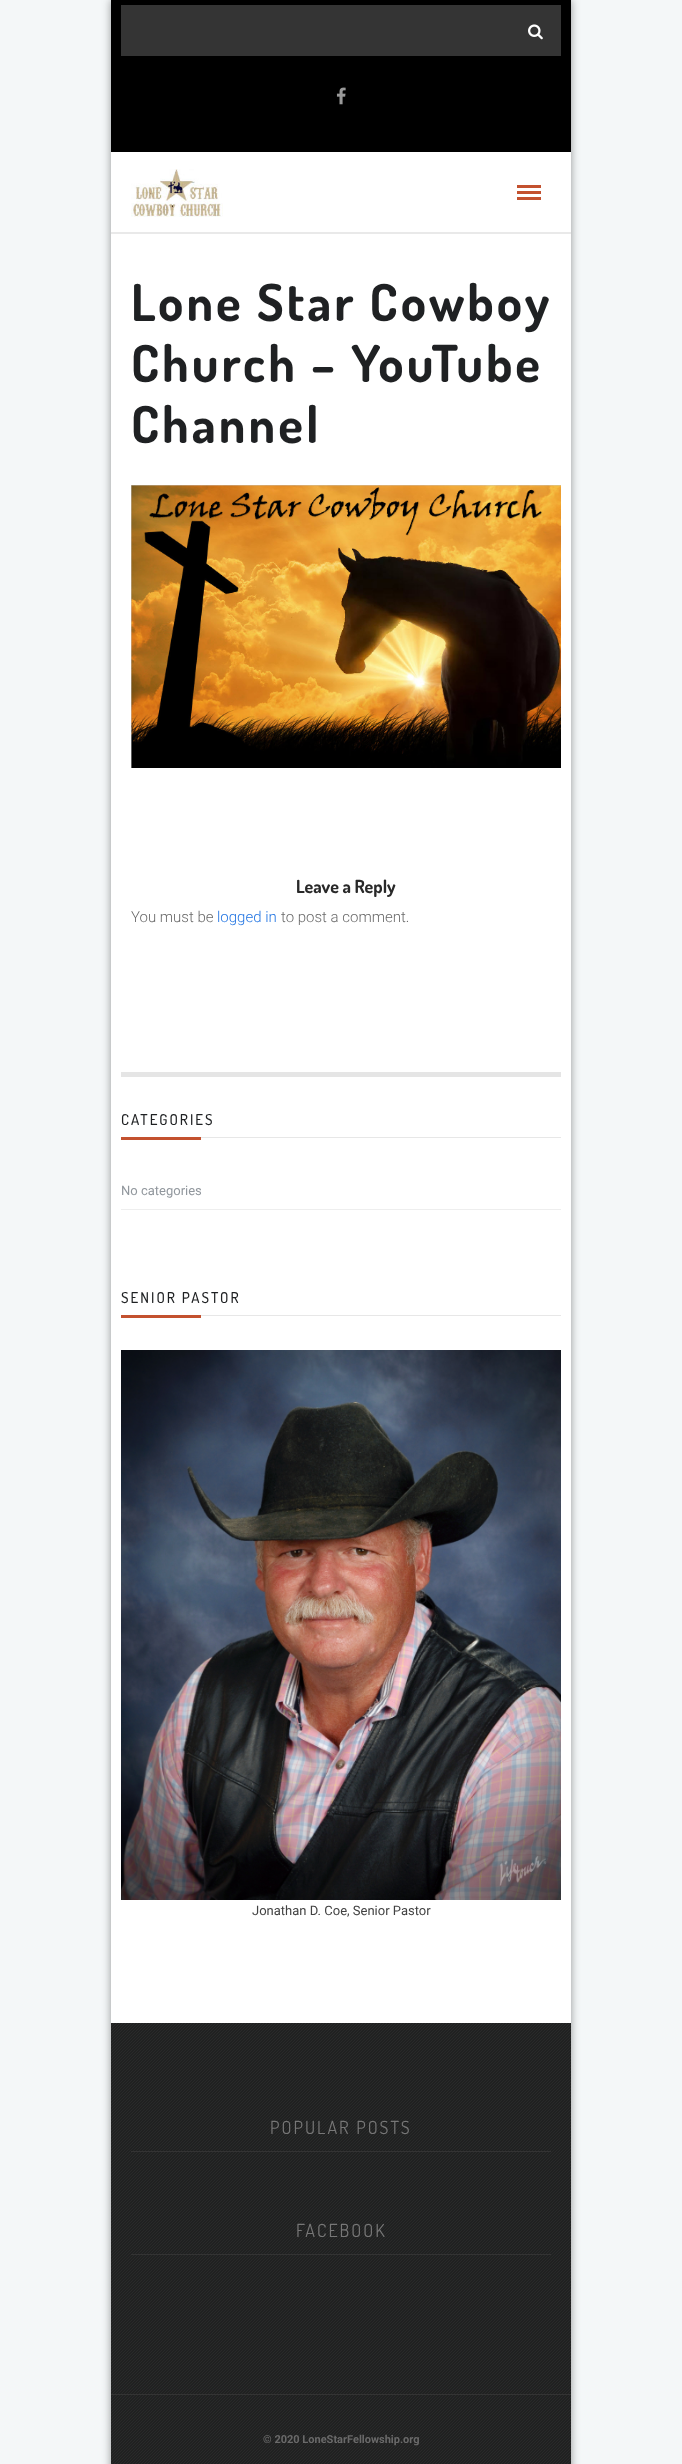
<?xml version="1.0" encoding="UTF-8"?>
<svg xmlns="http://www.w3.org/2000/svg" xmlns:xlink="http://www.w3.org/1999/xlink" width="682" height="2464">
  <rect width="100%" height="100%" fill="#f4f7f8" />
  <rect x="111" width="460" height="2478" fill="#000000" fill-opacity="0.4" filter="blur(4.5px)" />
  <rect x="111" y="152" width="460" height="1871" fill="#ffffff" />
  <rect x="111" width="460" height="152" fill="#000000" />
  <rect x="121" y="5" width="440" height="51" fill="#343434" />
  <image x="528" y="24" width="15" height="16" xlink:href="image1.png" />
  <image x="336" y="87" width="10" height="18" xlink:href="image2.png" />
  <rect x="111" y="232" width="460" height="2" fill="#e9e9e9" />
  <image x="131" y="169" width="92" height="48" xlink:href="image3.png" />
  <rect x="517" y="185" width="24" height="3" fill="#c3512f" />
  <rect x="517" y="191" width="24" height="3" fill="#c3512f" />
  <rect x="517" y="197" width="24" height="3" fill="#c3512f" />
  <image x="131" y="485" width="430" height="283" xlink:href="image4.png" />
  <rect x="121" y="1072" width="440" height="5" fill="#e5e5e5" />
  <rect x="121" y="1137" width="80" height="3" fill="#c3512f" />
  <rect x="201" y="1137" width="360" height="1" fill="#e7e7e7" />
  <rect x="121" y="1209" width="440" height="1" fill="#eeeeee" />
  <rect x="121" y="1315" width="80" height="3" fill="#c3512f" />
  <rect x="201" y="1315" width="360" height="1" fill="#e7e7e7" />
  <image x="121" y="1350" width="440" height="550" xlink:href="image5.png" />
  <image x="111" y="2023" width="460" height="371" xlink:href="image6.png" />
  <rect x="131" y="2151" width="420" height="1" fill="#333333" />
  <rect x="131" y="2254" width="420" height="1" fill="#333333" />
  <image x="111" y="2395" width="460" height="69" xlink:href="image7.png" />
  <rect x="111" y="2394" width="460" height="1" fill="#333333" />
  <text x="131" y="321" style="font-family: Dosis; font-size: 51px; font-weight: bold; letter-spacing: 3px; fill: #1f2123">Lone Star Cowboy</text>
  <text x="131" y="382" style="font-family: Dosis; font-size: 51px; font-weight: bold; letter-spacing: 3px; fill: #1f2123">Church – YouTube</text>
  <text x="131" y="443" style="font-family: Dosis; font-size: 51px; font-weight: bold; letter-spacing: 3px; fill: #1f2123">Channel</text>
  <text x="296" y="893" style="font-family: Dosis; font-size: 18px; font-weight: bold; fill: #292929">Leave a Reply</text>
  <text x="131" y="922" style="font-family: Roboto; font-size: 15px; font-weight: 300; fill: #6a6a6a">You must be</text>
  <text x="217" y="922" style="font-family: Roboto; font-size: 15px; font-weight: 300; fill: #2174e2">logged in</text>
  <text x="281" y="922" style="font-family: Roboto; font-size: 15px; font-weight: 300; fill: #6a6a6a">to post a comment.</text>
  <text x="121" y="1125" style="font-family: Dosis; font-size: 15px; font-weight: 500; letter-spacing: 2px; fill: #1f2123">CATEGORIES</text>
  <text x="121" y="1195" style="font-family: Roboto; font-size: 13px; fill: #91979d">No categories</text>
  <text x="121" y="1303" style="font-family: Dosis; font-size: 15px; font-weight: 500; letter-spacing: 2px; fill: #1f2123">SENIOR PASTOR</text>
  <text x="252" y="1915" style="font-family: Roboto; font-size: 13px; fill: #424242">Jonathan D. Coe, Senior Pastor</text>
  <text x="270" y="2134" style="font-family: Dosis; font-size: 18px; letter-spacing: 2px; fill: #777777">POPULAR POSTS</text>
  <text x="296" y="2237" style="font-family: Dosis; font-size: 18px; letter-spacing: 2px; fill: #777777">FACEBOOK</text>
  <text x="263" y="2443" style="font-family: Roboto; font-size: 11px; font-weight: bold; fill: #6a6a6a">© 2020 LoneStarFellowship.org</text>
</svg>
